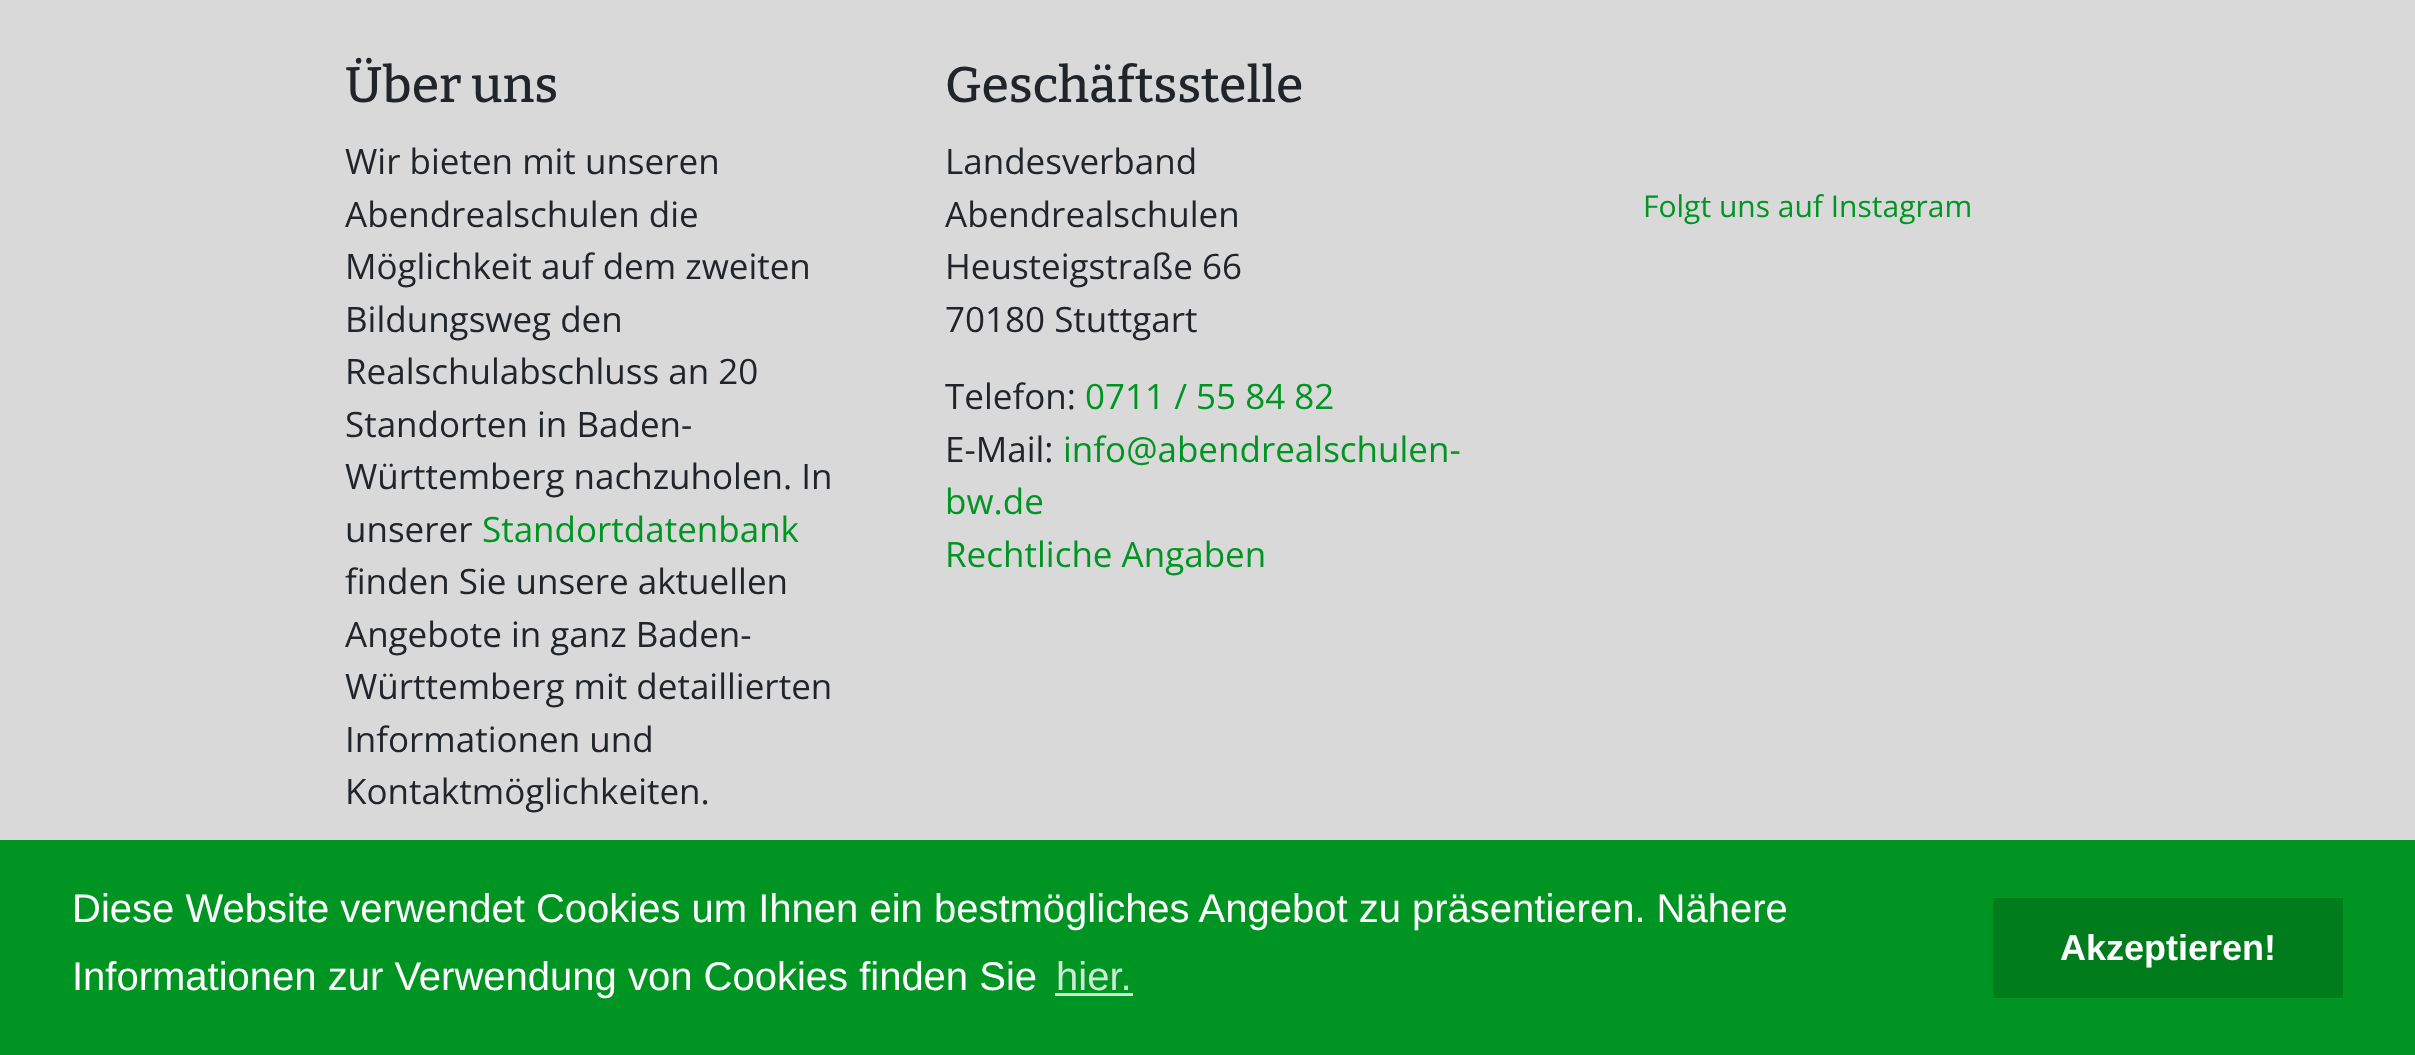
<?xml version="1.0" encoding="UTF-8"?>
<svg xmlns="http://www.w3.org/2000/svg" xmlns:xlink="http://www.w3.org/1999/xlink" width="2415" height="1055">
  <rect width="100%" height="100%" fill="#d9d9d9" />
  <rect y="840" width="2415" height="215" fill="#009523" />
  <rect x="1055" y="993" width="78" height="3" fill="#ccead3" />
  <rect x="1993" y="898" width="350" height="100" fill="#007c1d" />
  <text x="345" y="102" style="font-family: Bitter; font-size: 50px; font-weight: 500; fill: #212529">Über uns</text>
  <text x="345" y="174" style="font-family: Open Sans; font-size: 35px; fill: #212529">Wir bieten mit unseren</text>
  <text x="345" y="227" style="font-family: Open Sans; font-size: 35px; fill: #212529">Abendrealschulen die</text>
  <text x="345" y="279" style="font-family: Open Sans; font-size: 35px; fill: #212529">Möglichkeit auf dem zweiten</text>
  <text x="345" y="332" style="font-family: Open Sans; font-size: 35px; fill: #212529">Bildungsweg den</text>
  <text x="345" y="384" style="font-family: Open Sans; font-size: 35px; fill: #212529">Realschulabschluss an 20</text>
  <text x="345" y="437" style="font-family: Open Sans; font-size: 35px; fill: #212529">Standorten in Baden-</text>
  <text x="345" y="489" style="font-family: Open Sans; font-size: 35px; fill: #212529">Württemberg nachzuholen. In</text>
  <text x="345" y="542" style="font-family: Open Sans; font-size: 35px; fill: #212529">unserer</text>
  <text x="482" y="542" style="font-family: Open Sans; font-size: 35px; fill: #009523">Standortdatenbank</text>
  <text x="345" y="594" style="font-family: Open Sans; font-size: 35px; fill: #212529">finden Sie unsere aktuellen</text>
  <text x="345" y="647" style="font-family: Open Sans; font-size: 35px; fill: #212529">Angebote in ganz Baden-</text>
  <text x="345" y="699" style="font-family: Open Sans; font-size: 35px; fill: #212529">Württemberg mit detaillierten</text>
  <text x="345" y="752" style="font-family: Open Sans; font-size: 35px; fill: #212529">Informationen und</text>
  <text x="345" y="804" style="font-family: Open Sans; font-size: 35px; fill: #212529">Kontaktmöglichkeiten.</text>
  <text x="945" y="102" style="font-family: Bitter; font-size: 50px; font-weight: 500; fill: #212529">Geschäftsstelle</text>
  <text x="945" y="174" style="font-family: Open Sans; font-size: 35px; fill: #212529">Landesverband</text>
  <text x="945" y="227" style="font-family: Open Sans; font-size: 35px; fill: #212529">Abendrealschulen</text>
  <text x="945" y="279" style="font-family: Open Sans; font-size: 35px; fill: #212529">Heusteigstraße 66</text>
  <text x="945" y="332" style="font-family: Open Sans; font-size: 35px; fill: #212529">70180 Stuttgart</text>
  <text x="945" y="409" style="font-family: Open Sans; font-size: 35px; fill: #212529">Telefon:</text>
  <text x="1085" y="409" style="font-family: Open Sans; font-size: 35px; fill: #009523">0711 / 55 84 82</text>
  <text x="945" y="462" style="font-family: Open Sans; font-size: 35px; fill: #212529">E-Mail:</text>
  <text x="1063" y="462" style="font-family: Open Sans; font-size: 35px; fill: #009523">info@abendrealschulen-</text>
  <text x="945" y="514" style="font-family: Open Sans; font-size: 35px; fill: #009523">bw.de</text>
  <text x="945" y="567" style="font-family: Open Sans; font-size: 35px; fill: #009523">Rechtliche Angaben</text>
  <text x="1643" y="217" style="font-family: Open Sans; font-size: 30px; fill: #009523">Folgt uns auf Instagram</text>
  <text x="72" y="922" style="font-family: Liberation Sans; font-size: 40px; fill: #ffffff">Diese Website verwendet Cookies um Ihnen ein bestmögliches Angebot zu präsentieren. Nähere</text>
  <text x="72" y="990" style="font-family: Liberation Sans; font-size: 40px; fill: #ffffff">Informationen zur Verwendung von Cookies finden Sie</text>
  <text x="1056" y="990" style="font-family: Liberation Sans; font-size: 40px; fill: #ccead3">hier.</text>
  <text x="2060" y="960" style="font-family: Liberation Sans; font-size: 36px; font-weight: bold; fill: #ffffff">Akzeptieren!</text>
</svg>
